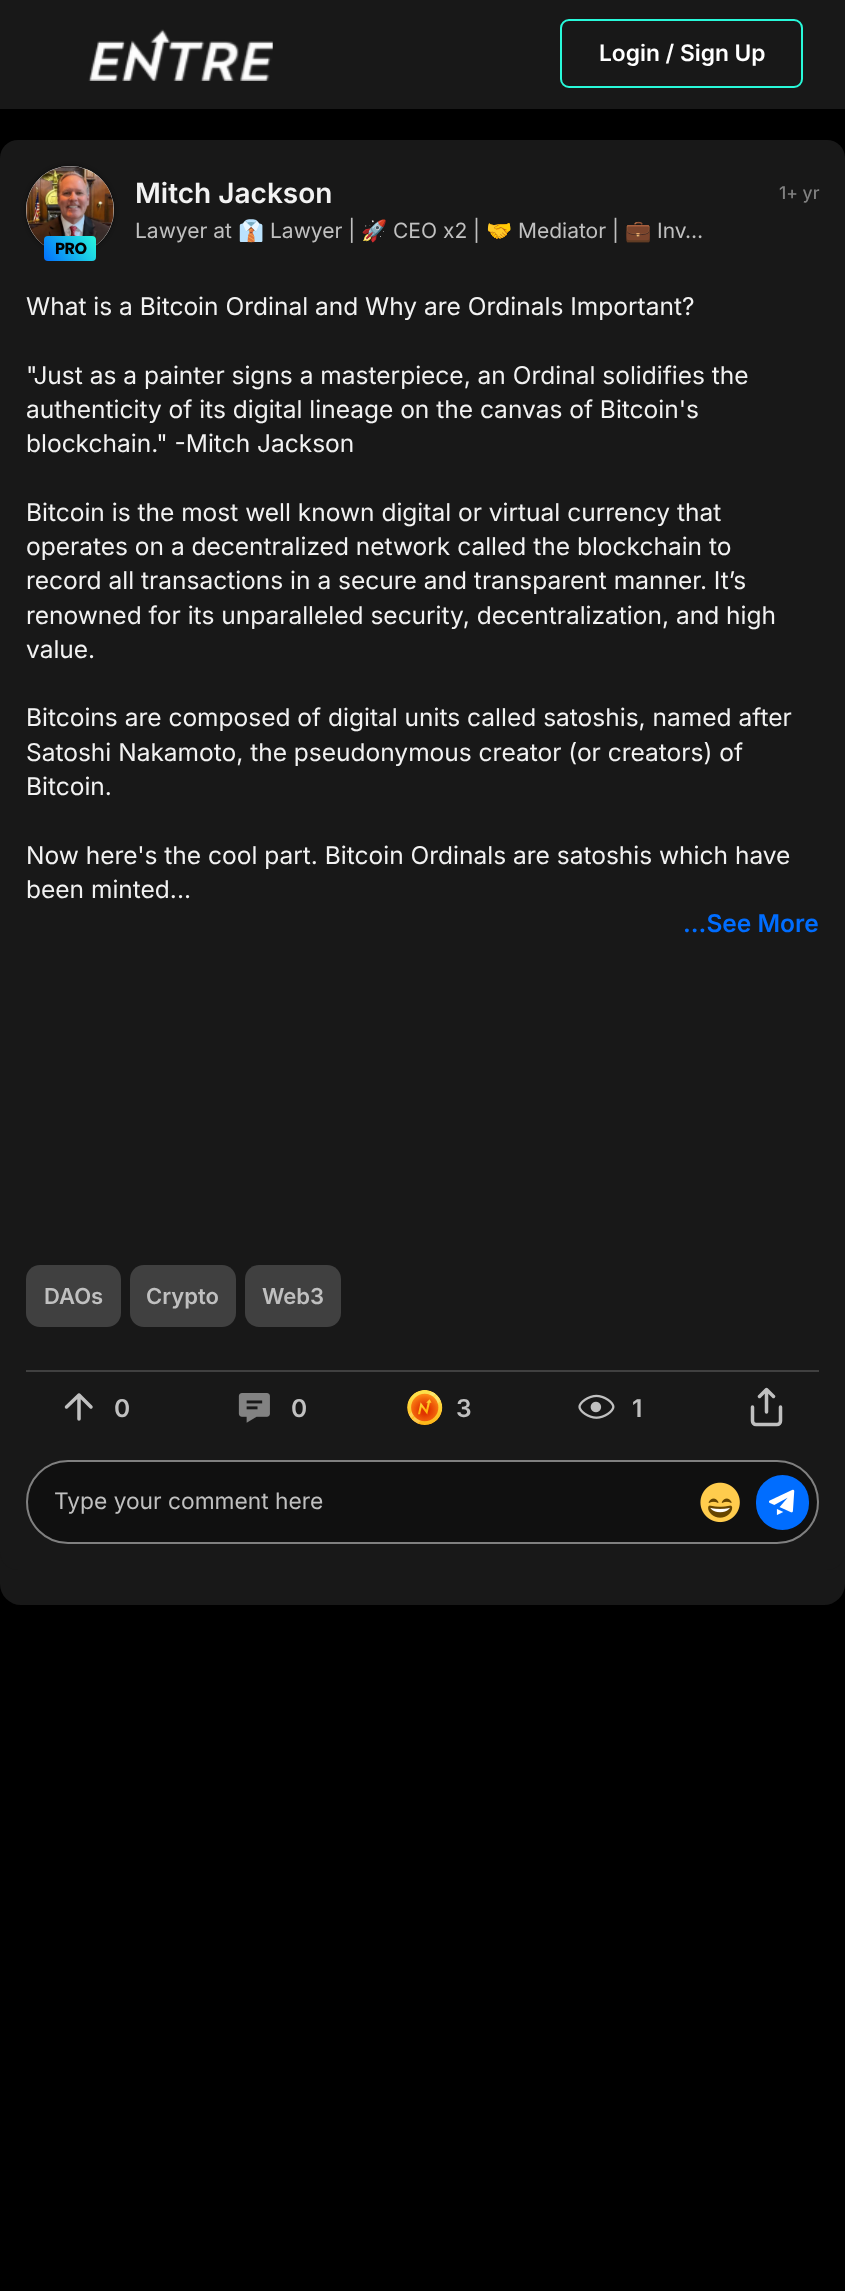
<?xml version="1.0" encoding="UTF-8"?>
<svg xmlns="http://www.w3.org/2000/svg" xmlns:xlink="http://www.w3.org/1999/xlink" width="845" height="2291">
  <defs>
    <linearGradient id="g1" gradientUnits="userSpaceOnUse" x1="46" y1="265" x2="94" y2="232"><stop offset="0" stop-color="#006dff" /><stop offset="1" stop-color="#28f9da" /></linearGradient>
  </defs>
  <rect width="100%" height="100%" fill="#000000" />
  <rect width="845" height="109" fill="#181818" />
  <image x="88" y="29" width="185" height="52" xlink:href="image1.png" />
  <rect x="561" y="20" width="241" height="67" rx="8" fill="none" stroke="#28f9da" stroke-width="2" />
  <rect y="140" width="845" height="1465" rx="21" fill="#181818" />
  <rect y="140" width="845" height="1430" rx="18" fill="#181818" />
  <rect x="26" y="166" width="88" height="88" rx="44" fill="#000000" fill-opacity="0.5" filter="blur(2px)" />
  <circle cx="70" cy="210" r="44" fill="#f2f2f2" />
  <image x="26" y="166" width="88" height="79" xlink:href="image2.png" />
  <rect x="44" y="236" width="52" height="25" rx="4" fill="url(#g1)" />
  <rect x="26" y="1370" width="793" height="2" fill="#404040" />
  <rect x="26" y="1265" width="95" height="62" rx="14" fill="#404040" />
  <rect x="130" y="1265" width="106" height="62" rx="14" fill="#404040" />
  <rect x="245" y="1265" width="96" height="62" rx="14" fill="#404040" />
  <path d="M 79 1419 v -24 m -12.5 12 l 12.5 -12 l 12 12" fill="none" stroke="#c0c0c0" stroke-width="3.5" stroke-linecap="round" stroke-linejoin="round" />
  <image x="238" y="1393" width="32" height="30" xlink:href="image3.png" />
  <image x="407" y="1390" width="36" height="35" xlink:href="image4.png" />
  <image x="578" y="1394" width="37" height="25" xlink:href="image5.png" />
  <path d="M 752.5 1407 v 14 c 0 2 1.5 3.5 3.5 3.5 h 21 c 2 0 3.5 -1.5 3.5 -3.5 v -14 m -7 -10.5 l -7 -7 l -7 7 m 7 -7 v 22.5" fill="none" stroke="#c0c0c0" stroke-width="3.5" stroke-linecap="round" stroke-linejoin="round" />
  <rect x="27" y="1461" width="791" height="82" rx="41" fill="#101010" stroke="#808080" stroke-width="2" />
  <image x="700" y="1482" width="40" height="41" xlink:href="image6.png" />
  <rect x="756" y="1475" width="53" height="55" rx="26.5" fill="#006dff" />
  <image x="769" y="1489" width="26" height="26" xlink:href="image7.png" />
  <text x="599" y="61" style="font-family: Inter; font-size: 22.75px; font-weight: 600; fill: #ffffff">Login / Sign Up</text>
  <text x="135" y="203" style="font-family: Inter; font-size: 28px; font-weight: 600; fill: #f2f2f2">Mitch Jackson</text>
  <text x="135" y="238" style="font-family: Inter; font-size: 21px; fill: #c0c0c0">Lawyer at</text>
  <text x="238" y="238" style="font-family: Noto Color Emoji; font-size: 21px; fill: #c0c0c0">👔</text>
  <text x="270" y="238" style="font-family: Inter; font-size: 21px; fill: #c0c0c0">Lawyer |</text>
  <text x="361" y="238" style="font-family: Noto Color Emoji; font-size: 21px; fill: #c0c0c0">🚀</text>
  <text x="393" y="238" style="font-family: Inter; font-size: 21px; fill: #c0c0c0">CEO x2 |</text>
  <text x="486" y="238" style="font-family: Noto Color Emoji; font-size: 21px; fill: #c0c0c0">🤝</text>
  <text x="518" y="238" style="font-family: Inter; font-size: 21px; fill: #c0c0c0">Mediator |</text>
  <text x="625" y="238" style="font-family: Noto Color Emoji; font-size: 21px; fill: #c0c0c0">💼</text>
  <text x="657" y="238" style="font-family: Inter; font-size: 21px; fill: #c0c0c0">Inv…</text>
  <text x="55" y="254" style="font-family: Poppins; font-size: 16px; font-weight: bold; letter-spacing: -0.5px; fill: #000000">PRO</text>
  <text x="779" y="199" style="font-family: Inter; font-size: 17.5px; font-weight: 500; fill: #808080">1+ yr</text>
  <text x="26" y="315" style="font-family: Inter; font-size: 24.5px; fill: #f2f2f2">What is a Bitcoin Ordinal and Why are Ordinals Important?</text>
  <text x="26" y="384" style="font-family: Inter; font-size: 24.5px; fill: #f2f2f2">"Just as a painter signs a masterpiece, an Ordinal solidifies the</text>
  <text x="26" y="418" style="font-family: Inter; font-size: 24.5px; fill: #f2f2f2">authenticity of its digital lineage on the canvas of Bitcoin's</text>
  <text x="26" y="452" style="font-family: Inter; font-size: 24.5px; fill: #f2f2f2">blockchain." -Mitch Jackson</text>
  <text x="26" y="521" style="font-family: Inter; font-size: 24.5px; fill: #f2f2f2">Bitcoin is the most well known digital or virtual currency that</text>
  <text x="26" y="555" style="font-family: Inter; font-size: 24.5px; fill: #f2f2f2">operates on a decentralized network called the blockchain to</text>
  <text x="26" y="589" style="font-family: Inter; font-size: 24.5px; fill: #f2f2f2">record all transactions in a secure and transparent manner. It’s</text>
  <text x="26" y="624" style="font-family: Inter; font-size: 24.5px; fill: #f2f2f2">renowned for its unparalleled security, decentralization, and high</text>
  <text x="26" y="658" style="font-family: Inter; font-size: 24.5px; fill: #f2f2f2">value.</text>
  <text x="26" y="726" style="font-family: Inter; font-size: 24.5px; fill: #f2f2f2">Bitcoins are composed of digital units called satoshis, named after</text>
  <text x="26" y="761" style="font-family: Inter; font-size: 24.5px; fill: #f2f2f2">Satoshi Nakamoto, the pseudonymous creator (or creators) of</text>
  <text x="26" y="795" style="font-family: Inter; font-size: 24.5px; fill: #f2f2f2">Bitcoin.</text>
  <text x="26" y="864" style="font-family: Inter; font-size: 24.5px; fill: #f2f2f2">Now here's the cool part. Bitcoin Ordinals are satoshis which have</text>
  <text x="26" y="898" style="font-family: Inter; font-size: 24.5px; fill: #f2f2f2">been minted...</text>
  <text x="683" y="932" style="font-family: Inter; font-size: 24.5px; font-weight: 600; fill: #006dff">...See More</text>
  <text x="44" y="1304" style="font-family: Inter; font-size: 22px; font-weight: 600; fill: #c0c0c0">DAOs</text>
  <text x="146" y="1304" style="font-family: Inter; font-size: 22px; font-weight: 600; fill: #c0c0c0">Crypto</text>
  <text x="262" y="1304" style="font-family: Inter; font-size: 22px; font-weight: 600; fill: #c0c0c0">Web3</text>
  <text x="114" y="1417" style="font-family: Inter; font-size: 24.5px; font-weight: 600; fill: #c0c0c0">0</text>
  <text x="291" y="1417" style="font-family: Inter; font-size: 24.5px; font-weight: 600; fill: #c0c0c0">0</text>
  <text x="456" y="1417" style="font-family: Inter; font-size: 24.5px; font-weight: 600; fill: #c0c0c0">3</text>
  <text x="632" y="1417" style="font-family: Inter; font-size: 24.5px; font-weight: 600; fill: #c0c0c0">1</text>
  <text x="54" y="1509" style="font-family: Inter; font-size: 22.75px; fill: #c0c0c0">Type your comment here</text>
</svg>
